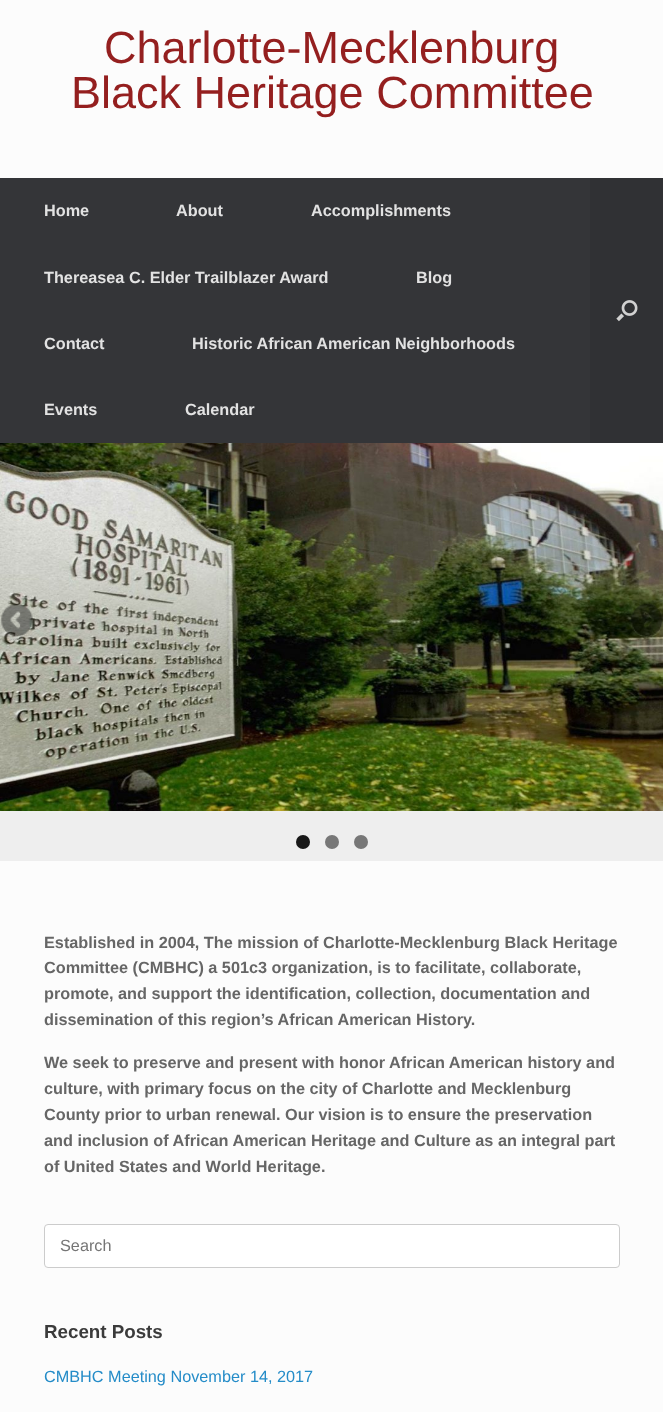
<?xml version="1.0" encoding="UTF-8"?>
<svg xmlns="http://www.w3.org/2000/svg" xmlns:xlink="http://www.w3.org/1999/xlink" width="663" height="1412">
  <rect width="100%" height="100%" fill="#fcfcfc" />
  <rect y="178" width="590" height="265" fill="#343538" />
  <rect x="590" y="178" width="73" height="265" fill="#303134" />
  <image x="616" y="300" width="22" height="22" xlink:href="image1.png" />
  <rect y="811" width="663" height="50" fill="#eeeeee" />
  <image x="0" y="443" width="663" height="368" xlink:href="image2.png" />
  <image x="1" y="603" width="32" height="35" xlink:href="image3.png" />
  <image x="631" y="603" width="32" height="35" xlink:href="image4.png" />
  <circle cx="303" cy="842" r="7" fill="#181818" />
  <circle cx="332" cy="842" r="7" fill="#777777" />
  <circle cx="361" cy="842" r="7" fill="#777777" />
  <rect x="44.5" y="1224.5" width="575" height="43" rx="3.5" fill="#ffffff" stroke="#cccccc" />
  <text x="104" y="63" style="font-family: Liberation Sans; font-size: 45px; fill: #941f1f">Charlotte-Mecklenburg</text>
  <text x="71" y="108" style="font-family: Liberation Sans; font-size: 45px; fill: #941f1f">Black Heritage Committee</text>
  <text x="44" y="216" style="font-family: Liberation Sans; font-size: 16.25px; font-weight: bold; fill: #e2e2e2">Home</text>
  <text x="176" y="216" style="font-family: Liberation Sans; font-size: 16.25px; font-weight: bold; fill: #e2e2e2">About</text>
  <text x="311" y="216" style="font-family: Liberation Sans; font-size: 16.25px; font-weight: bold; fill: #e2e2e2">Accomplishments</text>
  <text x="44" y="283" style="font-family: Liberation Sans; font-size: 16.25px; font-weight: bold; fill: #e2e2e2">Thereasea C. Elder Trailblazer Award</text>
  <text x="416" y="283" style="font-family: Liberation Sans; font-size: 16.25px; font-weight: bold; fill: #e2e2e2">Blog</text>
  <text x="44" y="349" style="font-family: Liberation Sans; font-size: 16.25px; font-weight: bold; fill: #e2e2e2">Contact</text>
  <text x="192" y="349" style="font-family: Liberation Sans; font-size: 16.25px; font-weight: bold; fill: #e2e2e2">Historic African American Neighborhoods</text>
  <text x="44" y="415" style="font-family: Liberation Sans; font-size: 16.25px; font-weight: bold; fill: #e2e2e2">Events</text>
  <text x="185" y="415" style="font-family: Liberation Sans; font-size: 16.25px; font-weight: bold; fill: #e2e2e2">Calendar</text>
  <text x="44" y="948" style="font-family: Liberation Sans; font-size: 16.25px; font-weight: bold; fill: #666666">Established in 2004, The mission of Charlotte-Mecklenburg Black Heritage</text>
  <text x="44" y="973" style="font-family: Liberation Sans; font-size: 16.25px; font-weight: bold; fill: #666666">Committee (CMBHC) a 501c3 organization, is to facilitate, collaborate,</text>
  <text x="44" y="999" style="font-family: Liberation Sans; font-size: 16.25px; font-weight: bold; fill: #666666">promote, and support the identification, collection, documentation and</text>
  <text x="44" y="1025" style="font-family: Liberation Sans; font-size: 16.25px; font-weight: bold; fill: #666666">dissemination of this region’s African American History.</text>
  <text x="44" y="1068" style="font-family: Liberation Sans; font-size: 16.25px; font-weight: bold; fill: #666666">We seek to preserve and present with honor African American history and</text>
  <text x="44" y="1094" style="font-family: Liberation Sans; font-size: 16.25px; font-weight: bold; fill: #666666">culture, with primary focus on the city of Charlotte and Mecklenburg</text>
  <text x="44" y="1120" style="font-family: Liberation Sans; font-size: 16.25px; font-weight: bold; fill: #666666">County prior to urban renewal. Our vision is to ensure the preservation</text>
  <text x="44" y="1146" style="font-family: Liberation Sans; font-size: 16.25px; font-weight: bold; fill: #666666">and inclusion of African American Heritage and Culture as an integral part</text>
  <text x="44" y="1172" style="font-family: Liberation Sans; font-size: 16.25px; font-weight: bold; fill: #666666">of United States and World Heritage.</text>
  <text x="60" y="1251" style="font-family: Liberation Sans; font-size: 16.25px; fill: #757575">Search</text>
  <text x="44" y="1338" style="font-family: Liberation Sans; font-size: 18.75px; font-weight: bold; fill: #3b3b3b">Recent Posts</text>
  <text x="44" y="1382" style="font-family: Liberation Sans; font-size: 16.25px; fill: #248cc8">CMBHC Meeting November 14, 2017</text>
</svg>
